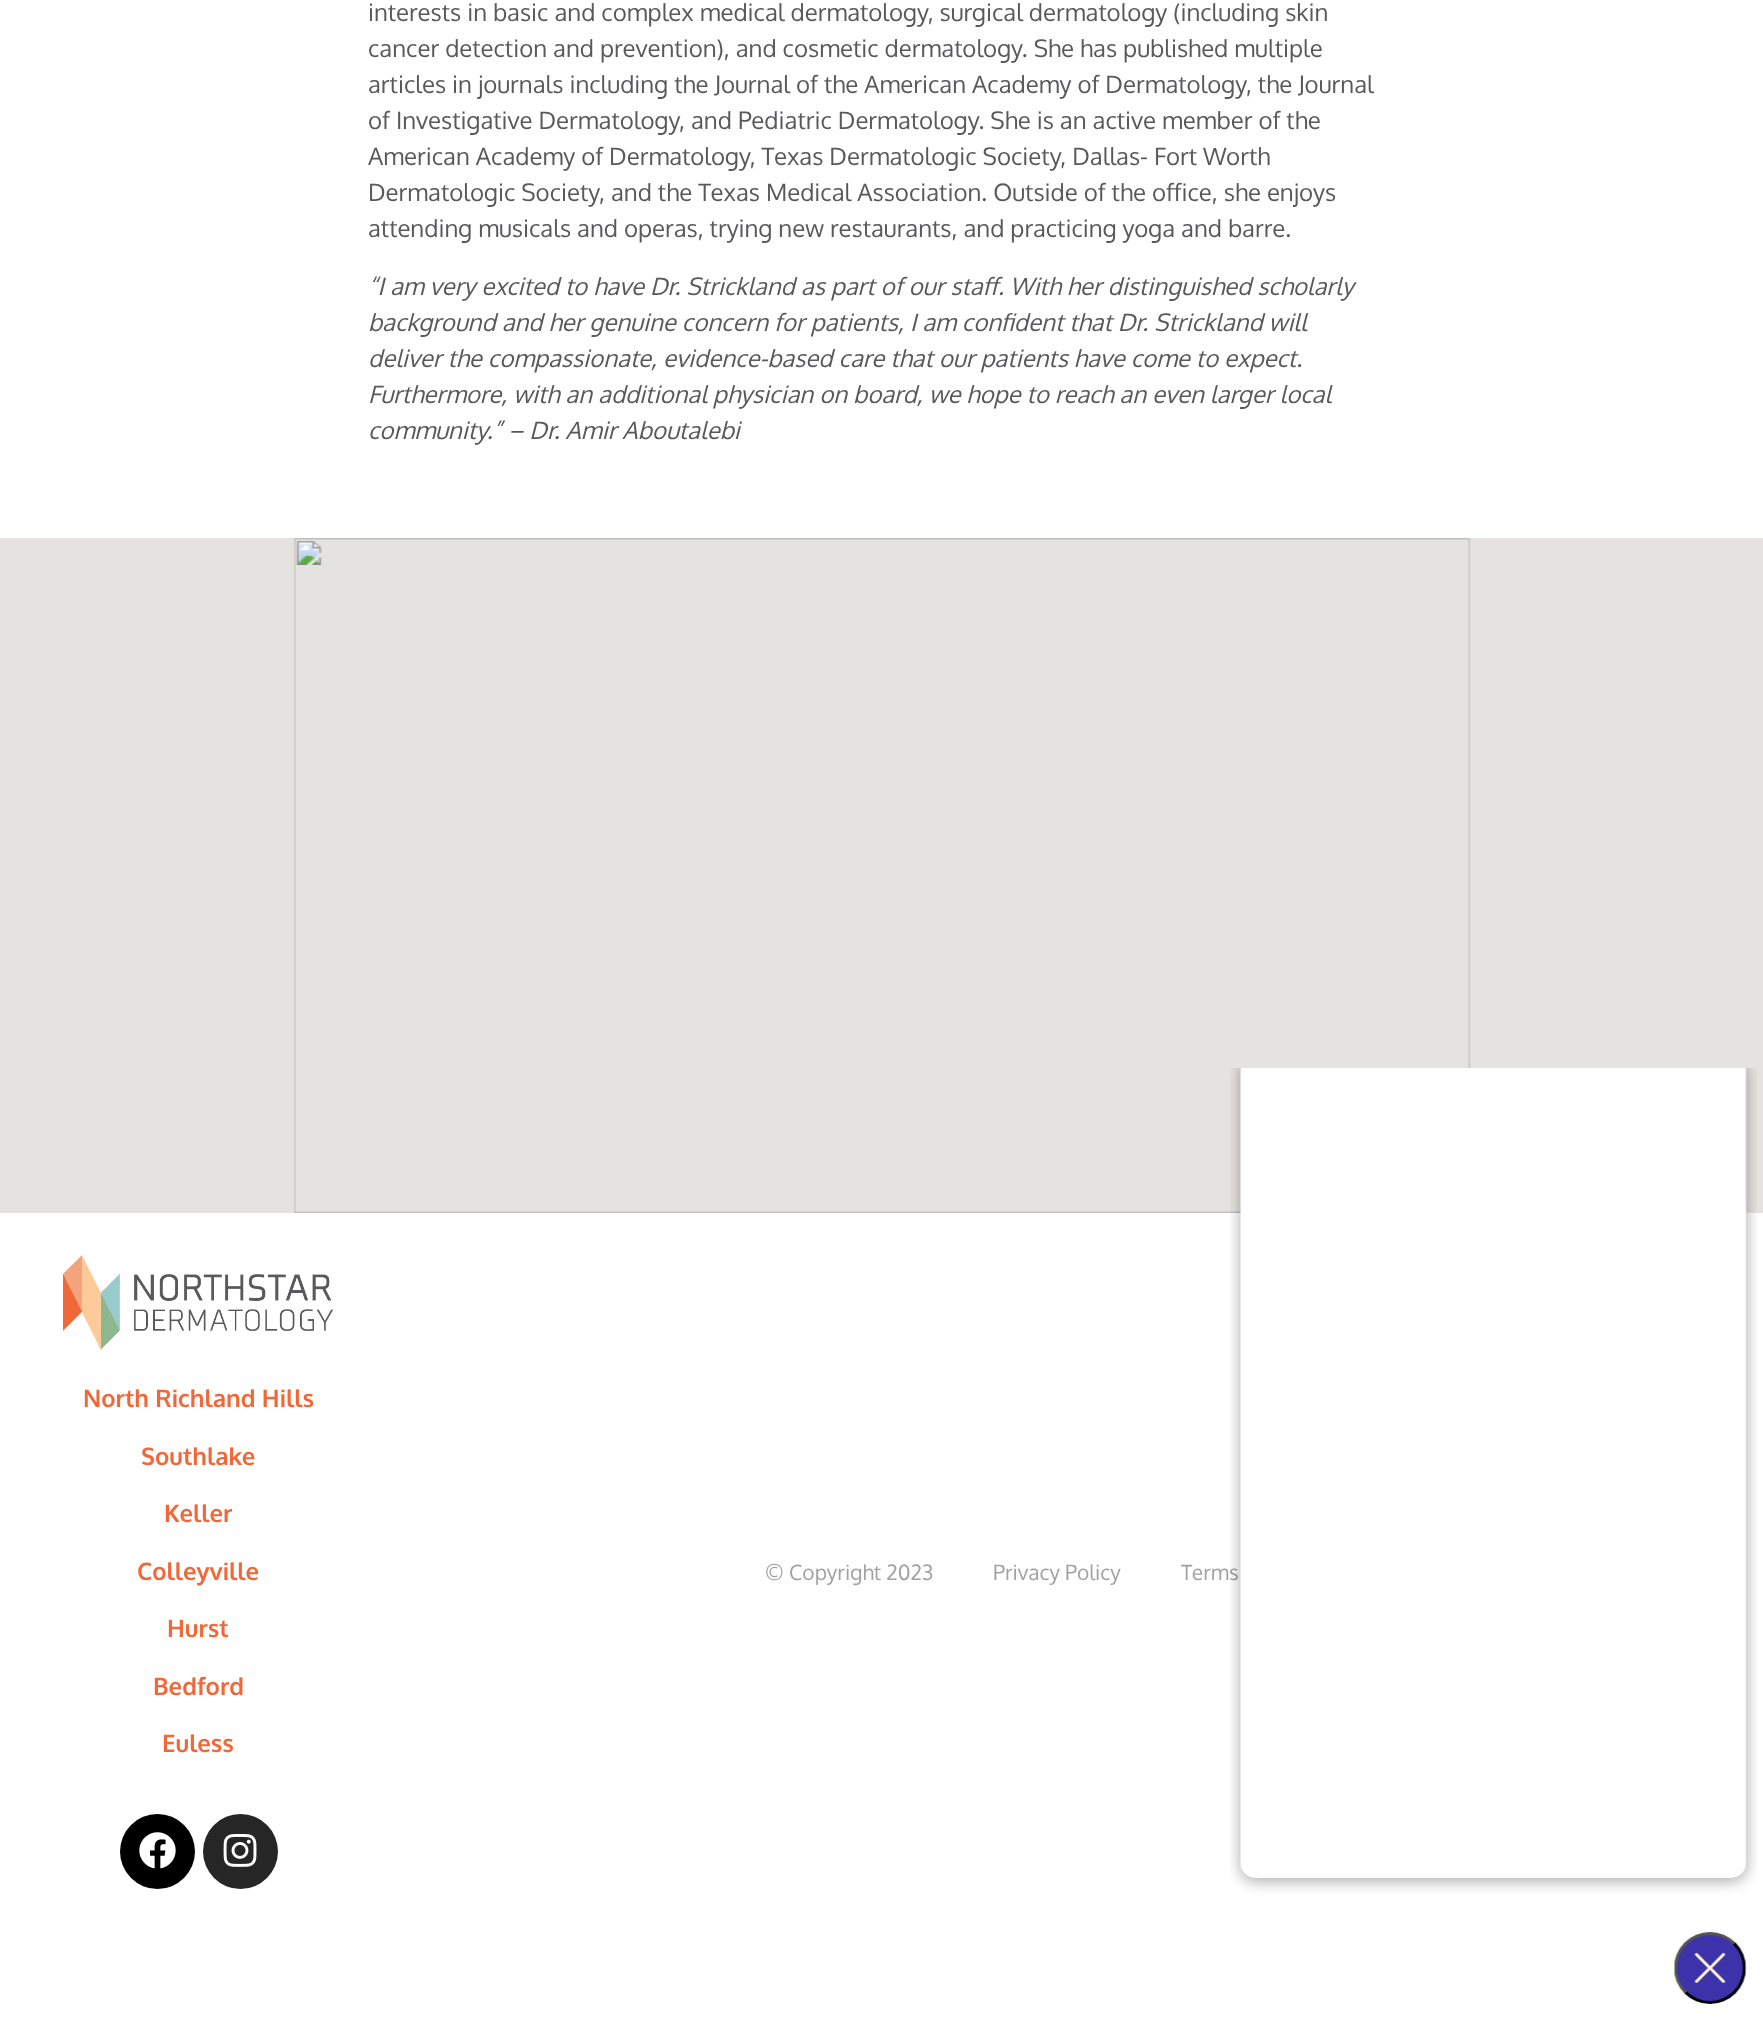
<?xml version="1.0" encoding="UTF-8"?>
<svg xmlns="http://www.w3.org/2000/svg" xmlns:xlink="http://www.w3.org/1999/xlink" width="1763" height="2022">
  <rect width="100%" height="100%" fill="#ffffff" />
  <image x="0" y="538" width="1763" height="675" xlink:href="image1.png" />
  <image x="63" y="1255" width="270" height="95" xlink:href="image2.png" />
  <circle cx="157.5" cy="1851.5" r="37.5" fill="#000000" />
  <image x="139" y="1832" width="37" height="37" xlink:href="image3.png" />
  <circle cx="240.5" cy="1851.5" r="37.5" fill="#262626" />
  <image x="223" y="1833" width="34" height="34" xlink:href="image4.png" />
  <text x="368" y="21" style="font-family: Oxygen; font-size: 24px; fill: #59595c">interests in basic and complex medical dermatology, surgical dermatology (including skin</text>
  <text x="368" y="57" style="font-family: Oxygen; font-size: 24px; fill: #59595c">cancer detection and prevention), and cosmetic dermatology. She has published multiple</text>
  <text x="368" y="93" style="font-family: Oxygen; font-size: 24px; fill: #59595c">articles in journals including the Journal of the American Academy of Dermatology, the Journal</text>
  <text x="368" y="129" style="font-family: Oxygen; font-size: 24px; fill: #59595c">of Investigative Dermatology, and Pediatric Dermatology. She is an active member of the</text>
  <text x="368" y="165" style="font-family: Oxygen; font-size: 24px; fill: #59595c">American Academy of Dermatology, Texas Dermatologic Society, Dallas- Fort Worth</text>
  <text x="368" y="201" style="font-family: Oxygen; font-size: 24px; fill: #59595c">Dermatologic Society, and the Texas Medical Association. Outside of the office, she enjoys</text>
  <text x="368" y="237" style="font-family: Oxygen; font-size: 24px; fill: #59595c">attending musicals and operas, trying new restaurants, and practicing yoga and barre.</text>
  <text x="368" y="295" style="font-family: Oxygen; font-size: 24px; font-style: italic; fill: #59595c">“I am very excited to have Dr. Strickland as part of our staff. With her distinguished scholarly</text>
  <text x="368" y="331" style="font-family: Oxygen; font-size: 24px; font-style: italic; fill: #59595c">background and her genuine concern for patients, I am confident that Dr. Strickland will</text>
  <text x="368" y="367" style="font-family: Oxygen; font-size: 24px; font-style: italic; fill: #59595c">deliver the compassionate, evidence-based care that our patients have come to expect.</text>
  <text x="368" y="403" style="font-family: Oxygen; font-size: 24px; font-style: italic; fill: #59595c">Furthermore, with an additional physician on board, we hope to reach an even larger local</text>
  <text x="368" y="439" style="font-family: Oxygen; font-size: 24px; font-style: italic; fill: #59595c">community.” – Dr. Amir Aboutalebi</text>
  <text x="83" y="1407" style="font-family: Oxygen; font-size: 24px; font-weight: bold; fill: #f16738">North Richland Hills</text>
  <text x="141" y="1465" style="font-family: Oxygen; font-size: 24px; font-weight: bold; fill: #f16738">Southlake</text>
  <text x="164" y="1522" style="font-family: Oxygen; font-size: 24px; font-weight: bold; fill: #f16738">Keller</text>
  <text x="137" y="1580" style="font-family: Oxygen; font-size: 24px; font-weight: bold; fill: #f16738">Colleyville</text>
  <text x="167" y="1637" style="font-family: Oxygen; font-size: 24px; font-weight: bold; fill: #f16738">Hurst</text>
  <text x="153" y="1695" style="font-family: Oxygen; font-size: 24px; font-weight: bold; fill: #f16738">Bedford</text>
  <text x="162" y="1752" style="font-family: Oxygen; font-size: 24px; font-weight: bold; fill: #f16738">Euless</text>
  <text x="765" y="1580" style="font-family: Oxygen; font-size: 21px; fill: #a2a2a4">© Copyright 2023</text>
  <text x="993" y="1580" style="font-family: Oxygen; font-size: 21px; fill: #a2a2a4">Privacy Policy</text>
  <text x="1181" y="1580" style="font-family: Oxygen; font-size: 21px; fill: #a2a2a4">Terms</text>
  <image x="1230" y="1068" width="527" height="936" xlink:href="image5.png" />
</svg>
